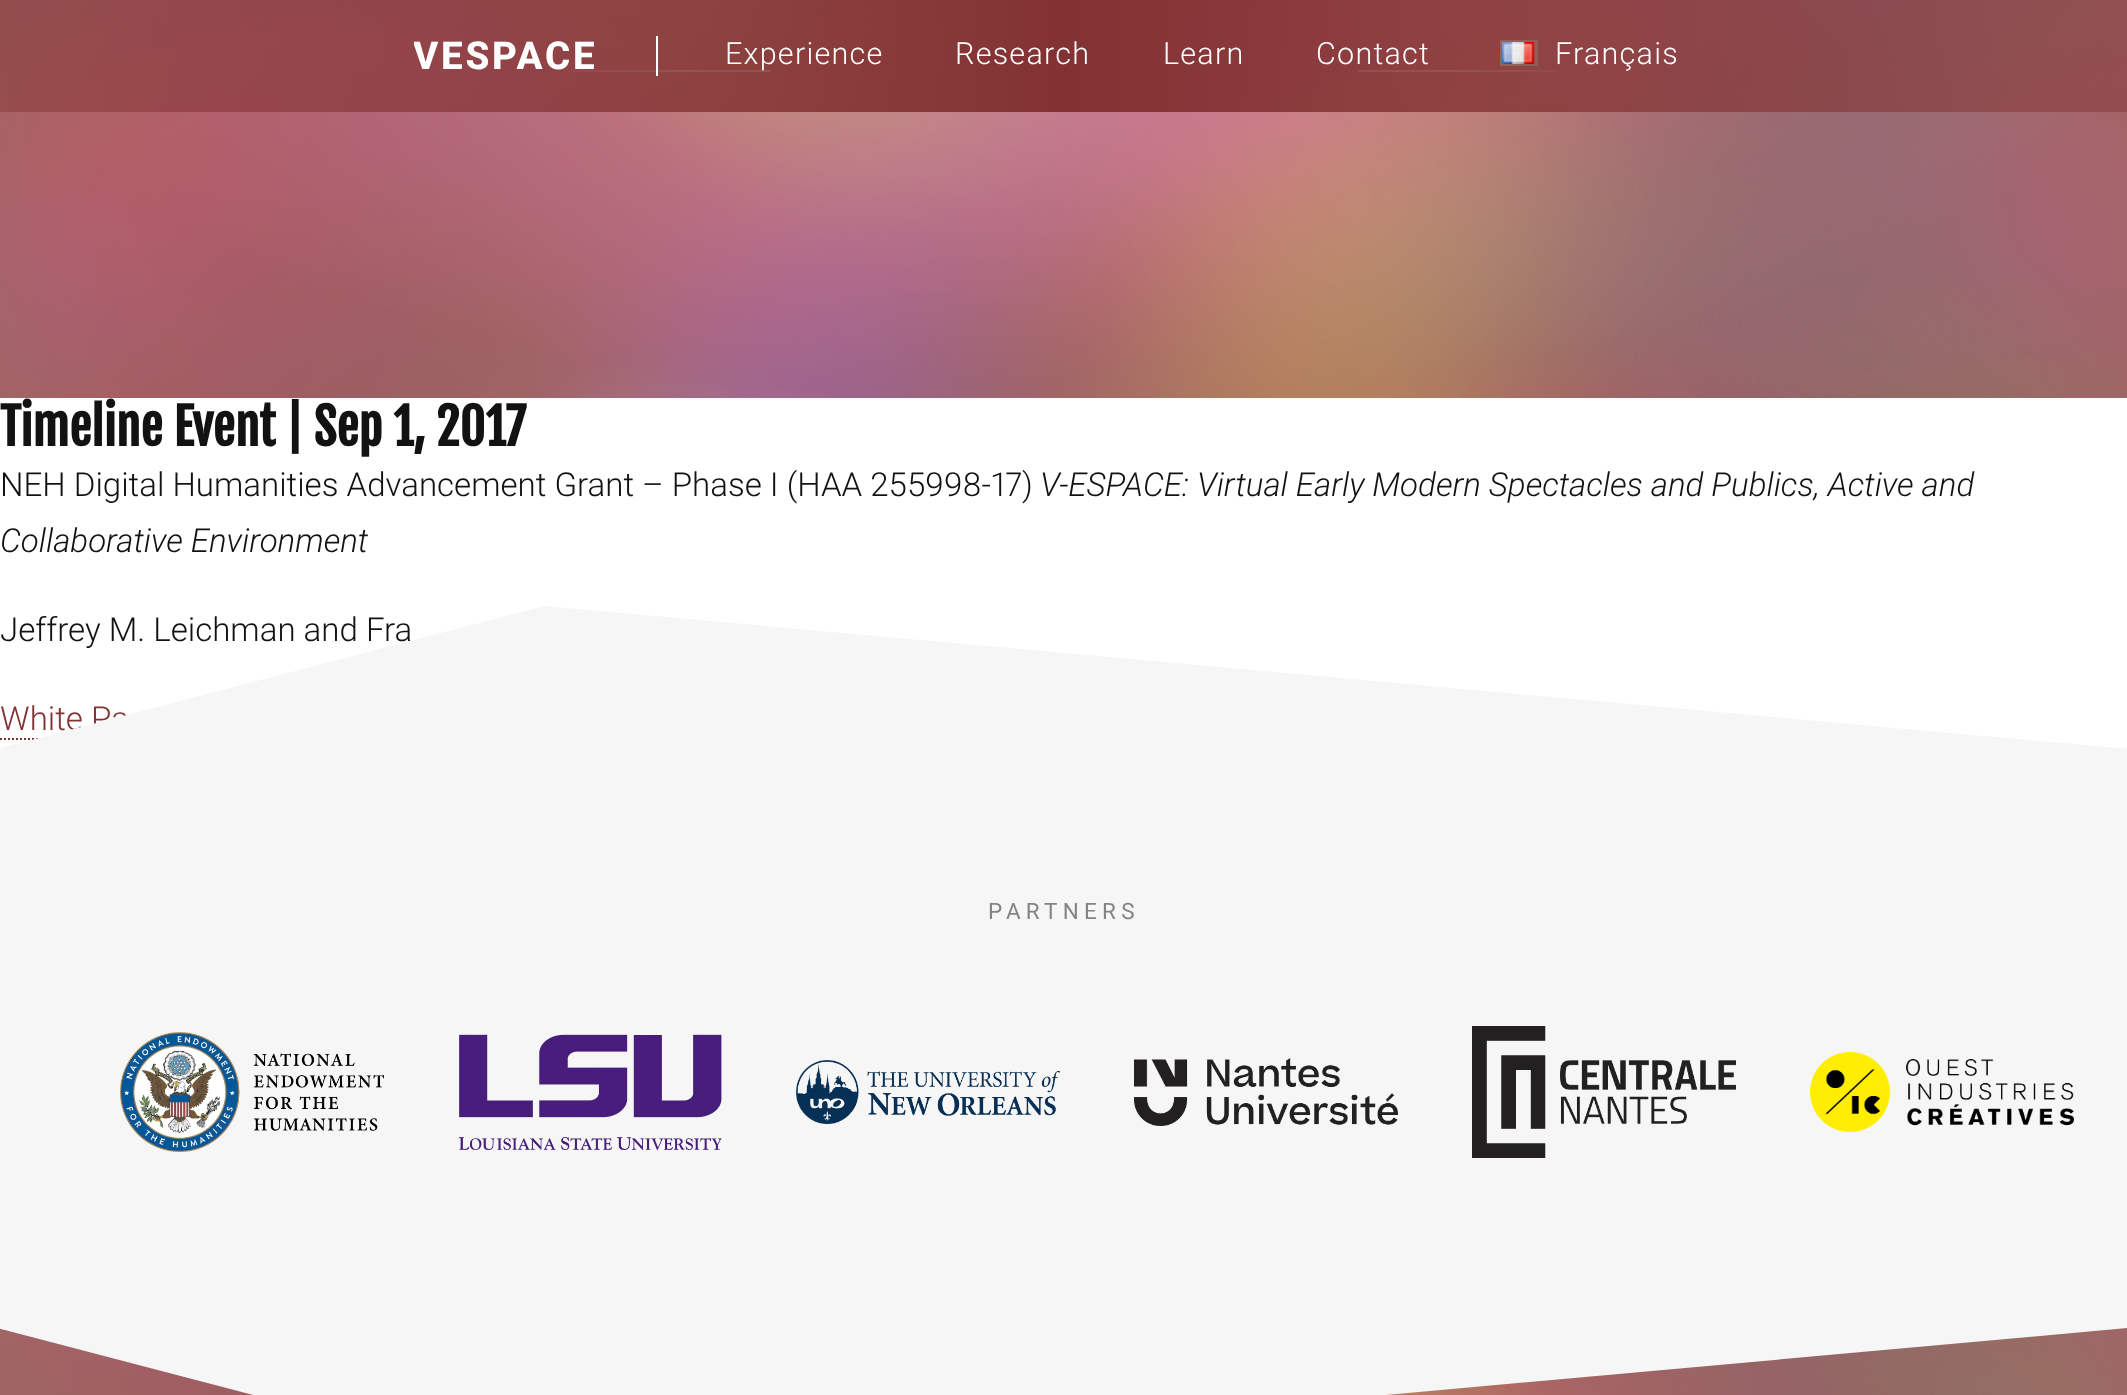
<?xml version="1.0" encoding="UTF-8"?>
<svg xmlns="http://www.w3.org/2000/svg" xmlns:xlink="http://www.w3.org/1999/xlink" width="2127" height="1395">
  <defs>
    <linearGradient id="g1" gradientUnits="userSpaceOnUse" x1="570" y1="71" x2="770" y2="71"><stop offset="0" stop-color="#ffffff" stop-opacity="0.2" /><stop offset="1" stop-color="#ffffff" /></linearGradient>
    <linearGradient id="g2" gradientUnits="userSpaceOnUse" x1="1558" y1="71" x2="1358" y2="71"><stop offset="0" stop-color="#ffffff" stop-opacity="0.2" /><stop offset="1" stop-color="#ffffff" /></linearGradient>
    <linearGradient id="g3" gradientUnits="userSpaceOnUse" x1="0" y1="56" x2="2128" y2="56"><stop offset="0" stop-color="#823232" stop-opacity="0.45" /><stop offset="0.5" stop-color="#823232" /><stop offset="1" stop-color="#823232" stop-opacity="0.45" /></linearGradient>
    <clipPath id="clip1"><rect x="414" y="36" width="242" height="40" /></clipPath>
    <clipPath id="clip2"><rect y="598" width="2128" height="150" /></clipPath>
  </defs>
  <rect width="100%" height="100%" fill="#ffffff" />
  <image x="0" y="0" width="2127" height="398" xlink:href="image2.png" />
  <rect x="570" y="70" width="200" height="2" fill="url(#g1)" />
  <rect x="1358" y="70" width="200" height="2" fill="url(#g2)" />
  <rect width="2127" height="112" fill="url(#g3)" />
  <rect x="656" y="36" width="2" height="40" fill="#ffffff" />
  <image x="1500" y="40" width="38" height="26" xlink:href="image1.png" />
  <path d="M 0 739 h 176" fill="none" stroke="#823232" stroke-width="2" stroke-dasharray="2 2" />
  <rect y="748" width="2127" height="580" fill="#f6f6f6" />
  <image x="120" y="1032" width="264" height="120" xlink:href="image3.png" />
  <image x="458" y="1034" width="264" height="116" xlink:href="image4.png" />
  <image x="796" y="1060" width="264" height="64" xlink:href="image5.png" />
  <image x="1134" y="1058" width="264" height="68" xlink:href="image6.png" />
  <image x="1472" y="1026" width="264" height="132" xlink:href="image7.png" />
  <image x="1810" y="1052" width="264" height="80" xlink:href="image8.png" />
  <image x="0" y="1328" width="2127" height="67" xlink:href="image9.png" />
  <path d="M -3 1328 h 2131 l -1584 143 z" fill="#f6f6f6" />
  <g clip-path="url(#clip1)">
    <text x="413" y="69" style="font-family: Roboto; font-size: 38.5px; font-weight: 800; letter-spacing: 2.75px; fill: #ffffff">VESPACE</text>
  </g>
  <text x="725" y="64" style="font-family: Roboto; font-size: 30.5px; font-weight: 300; letter-spacing: 1.25px; fill: #ffffff">Experience</text>
  <text x="955" y="64" style="font-family: Roboto; font-size: 30.5px; font-weight: 300; letter-spacing: 1.25px; fill: #ffffff">Research</text>
  <text x="1163" y="64" style="font-family: Roboto; font-size: 30.5px; font-weight: 300; letter-spacing: 1.25px; fill: #ffffff">Learn</text>
  <text x="1316" y="64" style="font-family: Roboto; font-size: 30.5px; font-weight: 300; letter-spacing: 1.25px; fill: #ffffff">Contact</text>
  <text x="1555" y="64" style="font-family: Roboto; font-size: 30.5px; font-weight: 300; letter-spacing: 1.25px; fill: #ffffff">Français</text>
  <text x="0" y="446" style="font-family: Fjalla One; font-size: 49.6px; font-weight: bold; fill: #121212">Timeline Event | Sep 1, 2017</text>
  <text x="0" y="496" style="font-family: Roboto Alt; font-size: 33.05px; font-weight: 300; fill: #121212">NEH Digital Humanities Advancement Grant – Phase I (HAA 255998-17)</text>
  <text x="1040" y="496" style="font-family: Roboto; font-size: 33.05px; font-weight: 300; font-style: italic; fill: #121212">V-ESPACE: Virtual Early Modern Spectacles and Publics, Active and</text>
  <text x="0" y="552" style="font-family: Roboto; font-size: 33.05px; font-weight: 300; font-style: italic; fill: #121212">Collaborative Environment</text>
  <text x="0" y="641" style="font-family: Roboto; font-size: 33.05px; font-weight: 300; fill: #121212">Jeffrey M. Leichman and Fra</text>
  <text x="0" y="730" style="font-family: Roboto; font-size: 33.05px; font-weight: 300; fill: #823232">White Pa</text>
  <g clip-path="url(#clip2)">
    <path d="M -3 749 h 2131 l -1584 -143 z" fill="#f6f6f6" />
  </g>
  <text x="988" y="919" style="font-family: Roboto; font-size: 22.5px; letter-spacing: 5.25px; fill: #848484">PARTNERS</text>
</svg>
